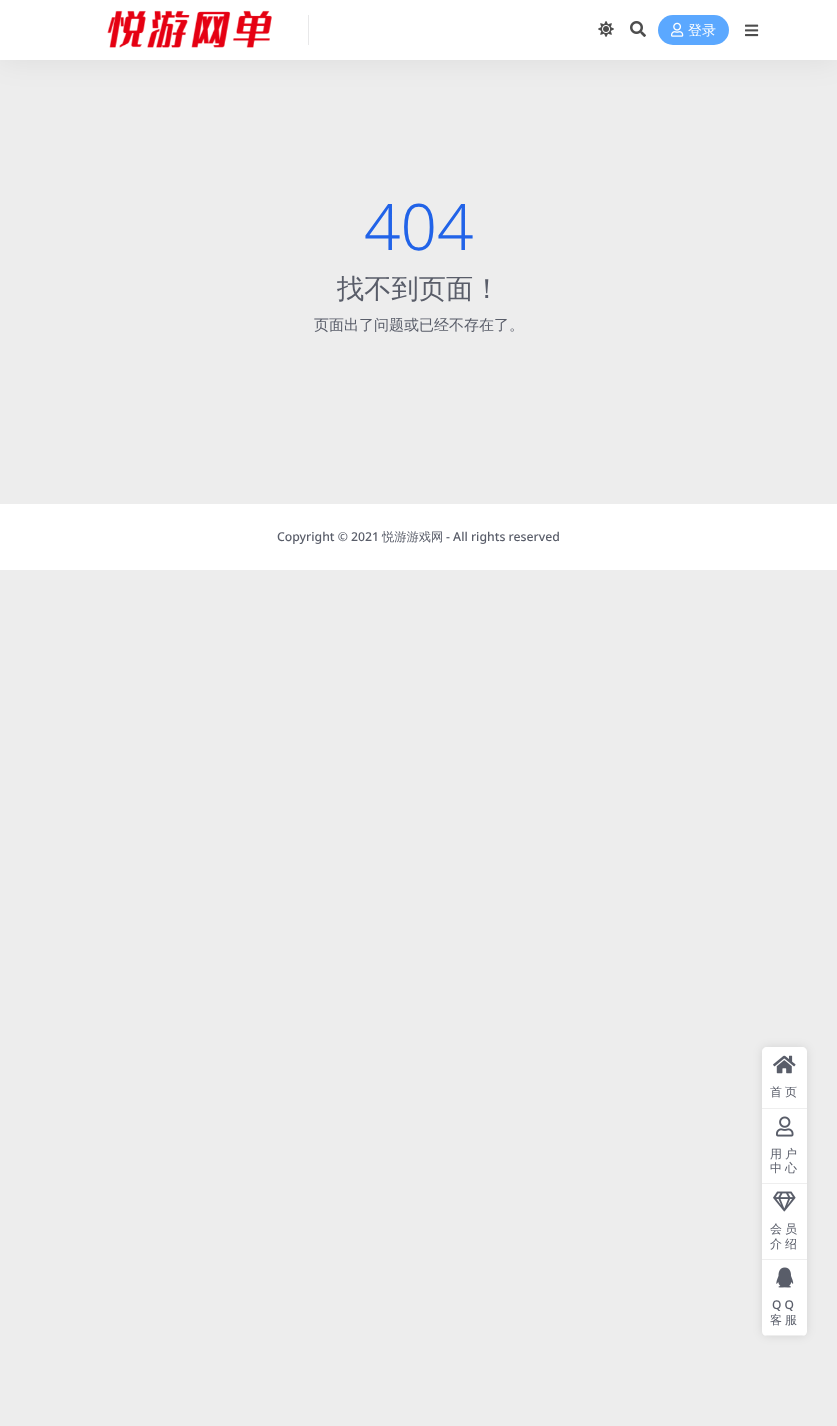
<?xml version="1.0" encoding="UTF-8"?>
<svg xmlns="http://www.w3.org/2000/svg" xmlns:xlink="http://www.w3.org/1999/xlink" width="837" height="1426">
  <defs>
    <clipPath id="clip1"><rect x="762" y="1047" width="45" height="289" rx="5" /></clipPath>
  </defs>
  <rect width="100%" height="100%" fill="#ededed" />
  <rect width="837" height="60" fill="#000000" fill-opacity="0.07" filter="blur(15px)" />
  <rect width="837" height="60" fill="#ffffff" />
  <image x="107" y="10" width="165" height="38" xlink:href="image1.png" />
  <rect x="308" y="15" width="1" height="30" fill="#e8e8e9" />
  <image x="598" y="21" width="16" height="16" xlink:href="image2.png" />
  <image x="630" y="21" width="16" height="16" xlink:href="image3.png" />
  <rect x="658" y="15" width="71" height="30" rx="15" fill="#5ba8ff" />
  <image x="671" y="22" width="13" height="15" xlink:href="image4.png" />
  <image x="745" y="24" width="14" height="13" xlink:href="image5.png" />
  <rect y="504" width="837" height="66" fill="#ffffff" />
  <rect x="762" y="1047" width="45" height="289" rx="5" fill="#000000" fill-opacity="0.1" filter="blur(5px)" />
  <path d="M 767 1047 h 35 c 3 0 5 2 5 5 v 57 h -45 v -57 c 0 -3 2 -5 5 -5 z" fill="#ffffff" />
  <rect x="762" y="1108" width="45" height="1" fill="#eeeeee" />
  <image x="773" y="1055" width="23" height="19" xlink:href="image6.png" />
  <rect x="762" y="1109" width="45" height="74" fill="#ffffff" />
  <rect x="762" y="1183" width="45" height="1" fill="#eeeeee" />
  <image x="776" y="1116" width="18" height="21" xlink:href="image7.png" />
  <rect x="762" y="1184" width="45" height="75" fill="#ffffff" />
  <rect x="762" y="1259" width="45" height="1" fill="#eeeeee" />
  <image x="773" y="1191" width="23" height="21" xlink:href="image8.png" />
  <path d="M 762 1260 h 45 v 71 c 0 3 -2 5 -5 5 h -35 c -3 0 -5 -2 -5 -5 z" fill="#ffffff" />
  <g clip-path="url(#clip1)">
    <rect x="762" y="1335" width="45" height="1" fill="#eeeeee" />
  </g>
  <image x="776" y="1267" width="18" height="21" xlink:href="image9.png" />
  <text x="688" y="35" style="font-family: WenQuanYi Zen Hei; font-size: 14px; font-weight: 500; fill: #ffffff">登录</text>
  <text x="364" y="250" style="font-family: Noto Sans; font-size: 64px; font-weight: 300; fill: #2163e8">404</text>
  <text x="337" y="298" style="font-family: WenQuanYi Zen Hei; font-size: 27.25px; font-weight: 500; fill: #595d69">找不到页面！</text>
  <text x="314" y="330" style="font-family: WenQuanYi Zen Hei; font-size: 15px; font-weight: 500; fill: #595d69">页面出了问题或已经不存在了。</text>
  <text x="277" y="541" style="font-family: Noto Sans; font-size: 12.25px; font-weight: 500; fill: #595d69">Copyright © 2021</text>
  <text x="382" y="541" style="font-family: WenQuanYi Zen Hei; font-size: 12.25px; font-weight: 500; fill: #595d69">悦游游戏网</text>
  <text x="446" y="541" style="font-family: Noto Sans; font-size: 12.25px; font-weight: 500; fill: #595d69">- All rights reserved</text>
  <text x="770" y="1096" style="font-family: WenQuanYi Zen Hei; font-size: 12px; font-weight: 500; letter-spacing: 3px; fill: #595d69">首页</text>
  <text x="770" y="1158" style="font-family: WenQuanYi Zen Hei; font-size: 12px; font-weight: 500; letter-spacing: 3px; fill: #595d69">用户</text>
  <text x="770" y="1172" style="font-family: WenQuanYi Zen Hei; font-size: 12px; font-weight: 500; letter-spacing: 3px; fill: #595d69">中心</text>
  <text x="770" y="1233" style="font-family: WenQuanYi Zen Hei; font-size: 12px; font-weight: 500; letter-spacing: 3px; fill: #595d69">会员</text>
  <text x="770" y="1248" style="font-family: WenQuanYi Zen Hei; font-size: 12px; font-weight: 500; letter-spacing: 3px; fill: #595d69">介绍</text>
  <text x="772" y="1309" style="font-family: Noto Sans; font-size: 12px; font-weight: 500; letter-spacing: 3px; fill: #595d69">QQ</text>
  <text x="770" y="1324" style="font-family: WenQuanYi Zen Hei; font-size: 12px; font-weight: 500; letter-spacing: 3px; fill: #595d69">客服</text>
</svg>
